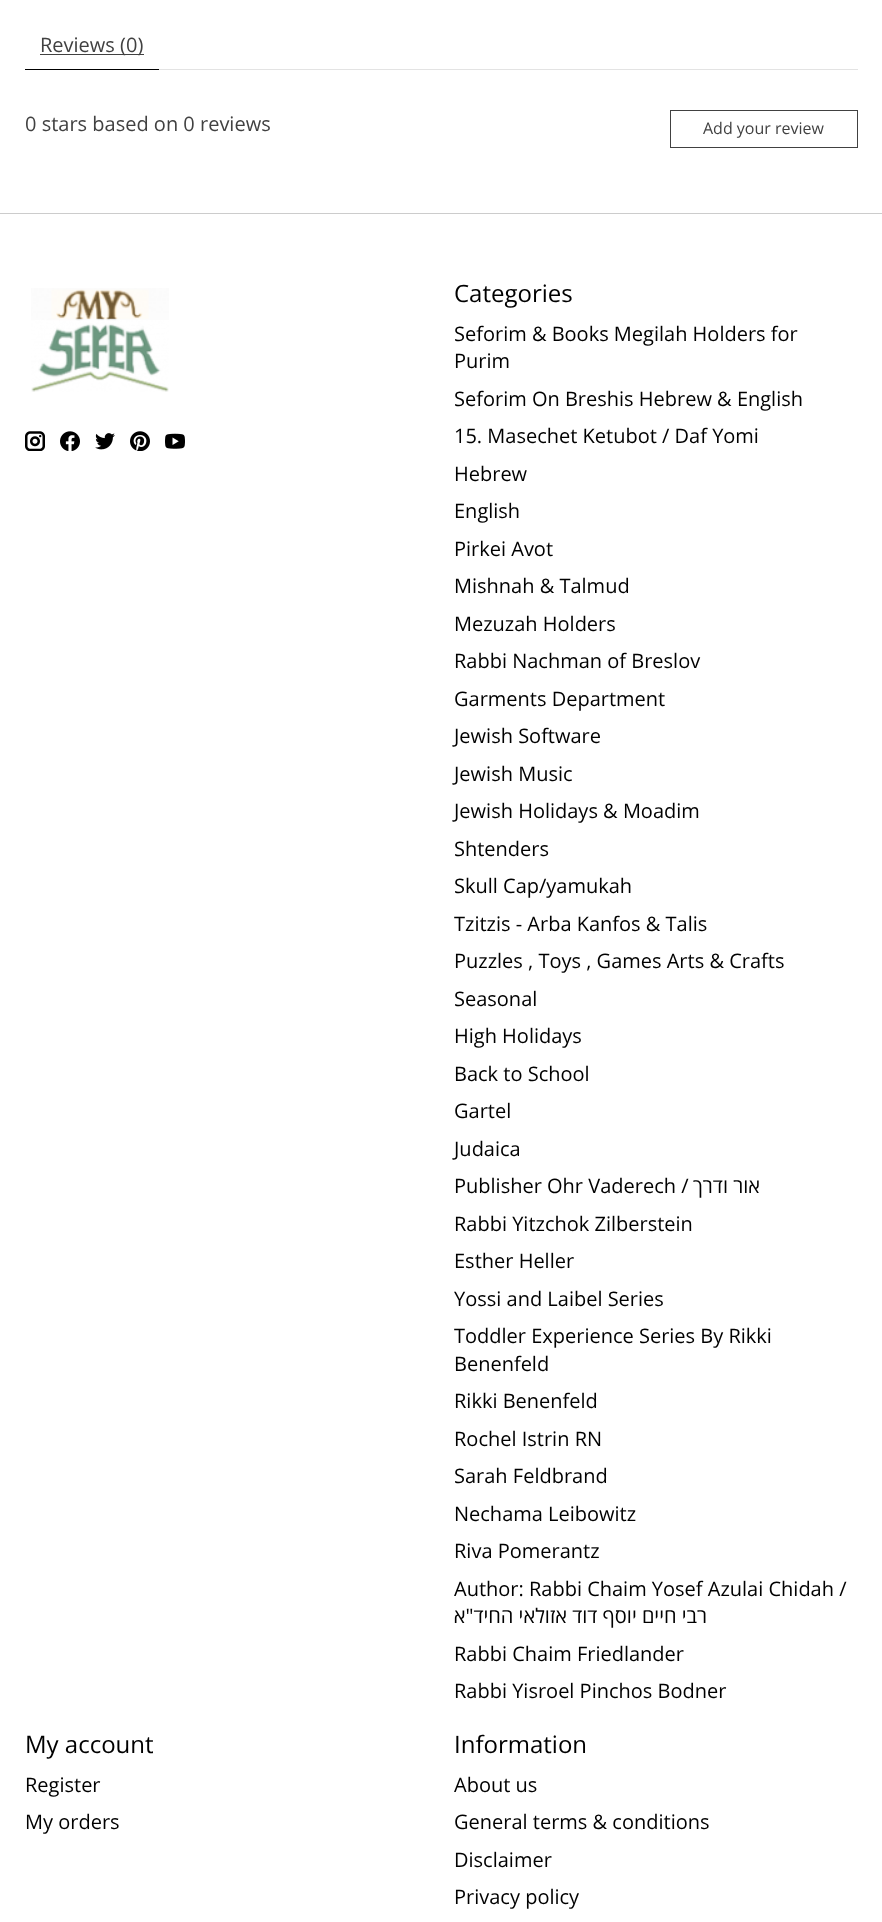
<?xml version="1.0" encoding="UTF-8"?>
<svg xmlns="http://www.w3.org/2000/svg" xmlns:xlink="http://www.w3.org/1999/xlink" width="882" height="1922">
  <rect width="100%" height="100%" fill="#ffffff" />
  <rect x="25" y="69" width="134" height="1" fill="#000000" />
  <rect x="40" y="54" width="104" height="1" fill="#414141" />
  <rect x="159" y="69" width="699" height="1" fill="#e3e3e3" />
  <rect x="670.5" y="110.5" width="187" height="37" fill="none" stroke="#414141" />
  <rect y="213" width="882" height="1" fill="#cccccc" />
  <image x="31" y="288" width="138" height="104" xlink:href="image1.png" />
  <image x="25" y="431" width="20" height="20" xlink:href="image2.png" />
  <image x="60" y="431" width="20" height="20" xlink:href="image3.png" />
  <image x="95" y="433" width="20" height="17" xlink:href="image4.png" />
  <image x="130" y="431" width="20" height="20" xlink:href="image5.png" />
  <image x="165" y="433" width="20" height="16" xlink:href="image6.png" />
  <text x="40" y="52" style="font-family: Open Sans; font-size: 20px; fill: #414141">Reviews (0)</text>
  <text x="25" y="131" style="font-family: Open Sans; font-size: 20px; fill: #414141">0 stars based on 0 reviews</text>
  <text x="703" y="134" style="font-family: Open Sans; font-size: 16px; fill: #414141">Add your review</text>
  <text x="454" y="302" style="font-family: Open Sans; font-size: 24px; fill: #000000">Categories</text>
  <text x="454" y="341" style="font-family: Open Sans; font-size: 20px; fill: #000000">Seforim &amp; Books Megilah Holders for</text>
  <text x="454" y="368" style="font-family: Open Sans; font-size: 20px; fill: #000000">Purim</text>
  <text x="454" y="406" style="font-family: Open Sans; font-size: 20px; fill: #000000">Seforim On Breshis Hebrew &amp; English</text>
  <text x="454" y="443" style="font-family: Open Sans; font-size: 20px; fill: #000000">15. Masechet Ketubot / Daf Yomi</text>
  <text x="454" y="481" style="font-family: Open Sans; font-size: 20px; fill: #000000">Hebrew</text>
  <text x="454" y="518" style="font-family: Open Sans; font-size: 20px; fill: #000000">English</text>
  <text x="454" y="556" style="font-family: Open Sans; font-size: 20px; fill: #000000">Pirkei Avot</text>
  <text x="454" y="593" style="font-family: Open Sans; font-size: 20px; fill: #000000">Mishnah &amp; Talmud</text>
  <text x="454" y="631" style="font-family: Open Sans; font-size: 20px; fill: #000000">Mezuzah Holders</text>
  <text x="454" y="668" style="font-family: Open Sans; font-size: 20px; fill: #000000">Rabbi Nachman of Breslov</text>
  <text x="454" y="706" style="font-family: Open Sans; font-size: 20px; fill: #000000">Garments Department</text>
  <text x="454" y="743" style="font-family: Open Sans; font-size: 20px; fill: #000000">Jewish Software</text>
  <text x="454" y="781" style="font-family: Open Sans; font-size: 20px; fill: #000000">Jewish Music</text>
  <text x="454" y="818" style="font-family: Open Sans; font-size: 20px; fill: #000000">Jewish Holidays &amp; Moadim</text>
  <text x="454" y="856" style="font-family: Open Sans; font-size: 20px; fill: #000000">Shtenders</text>
  <text x="454" y="893" style="font-family: Open Sans; font-size: 20px; fill: #000000">Skull Cap/yamukah</text>
  <text x="454" y="931" style="font-family: Open Sans; font-size: 20px; fill: #000000">Tzitzis - Arba Kanfos &amp; Talis</text>
  <text x="454" y="968" style="font-family: Open Sans; font-size: 20px; fill: #000000">Puzzles , Toys , Games Arts &amp; Crafts</text>
  <text x="454" y="1006" style="font-family: Open Sans; font-size: 20px; fill: #000000">Seasonal</text>
  <text x="454" y="1043" style="font-family: Open Sans; font-size: 20px; fill: #000000">High Holidays</text>
  <text x="454" y="1081" style="font-family: Open Sans; font-size: 20px; fill: #000000">Back to School</text>
  <text x="454" y="1118" style="font-family: Open Sans; font-size: 20px; fill: #000000">Gartel</text>
  <text x="454" y="1156" style="font-family: Open Sans; font-size: 20px; fill: #000000">Judaica</text>
  <text x="454" y="1193" style="font-family: Open Sans; font-size: 20px; fill: #000000">Publisher Ohr Vaderech /</text>
  <text x="760" y="1193" style="font-family: Open Sans; font-size: 20px; direction: rtl; fill: #000000">אור ודרך</text>
  <text x="454" y="1231" style="font-family: Open Sans; font-size: 20px; fill: #000000">Rabbi Yitzchok Zilberstein</text>
  <text x="454" y="1268" style="font-family: Open Sans; font-size: 20px; fill: #000000">Esther Heller</text>
  <text x="454" y="1306" style="font-family: Open Sans; font-size: 20px; fill: #000000">Yossi and Laibel Series</text>
  <text x="454" y="1343" style="font-family: Open Sans; font-size: 20px; fill: #000000">Toddler Experience Series By Rikki</text>
  <text x="454" y="1371" style="font-family: Open Sans; font-size: 20px; fill: #000000">Benenfeld</text>
  <text x="454" y="1408" style="font-family: Open Sans; font-size: 20px; fill: #000000">Rikki Benenfeld</text>
  <text x="454" y="1446" style="font-family: Open Sans; font-size: 20px; fill: #000000">Rochel Istrin RN</text>
  <text x="454" y="1483" style="font-family: Open Sans; font-size: 20px; fill: #000000">Sarah Feldbrand</text>
  <text x="454" y="1521" style="font-family: Open Sans; font-size: 20px; fill: #000000">Nechama Leibowitz</text>
  <text x="454" y="1558" style="font-family: Open Sans; font-size: 20px; fill: #000000">Riva Pomerantz</text>
  <text x="454" y="1596" style="font-family: Open Sans; font-size: 20px; fill: #000000">Author: Rabbi Chaim Yosef Azulai Chidah /</text>
  <text x="707" y="1623" style="font-family: Open Sans; font-size: 20px; direction: rtl; fill: #000000">רבי חיים יוסף דוד אזולאי החיד"א</text>
  <text x="454" y="1661" style="font-family: Open Sans; font-size: 20px; fill: #000000">Rabbi Chaim Friedlander</text>
  <text x="454" y="1698" style="font-family: Open Sans; font-size: 20px; fill: #000000">Rabbi Yisroel Pinchos Bodner</text>
  <text x="25" y="1753" style="font-family: Open Sans; font-size: 24px; fill: #000000">My account</text>
  <text x="25" y="1792" style="font-family: Open Sans; font-size: 20px; fill: #000000">Register</text>
  <text x="25" y="1829" style="font-family: Open Sans; font-size: 20px; fill: #000000">My orders</text>
  <text x="454" y="1753" style="font-family: Open Sans; font-size: 24px; fill: #000000">Information</text>
  <text x="454" y="1792" style="font-family: Open Sans; font-size: 20px; fill: #000000">About us</text>
  <text x="454" y="1829" style="font-family: Open Sans; font-size: 20px; fill: #000000">General terms &amp; conditions</text>
  <text x="454" y="1867" style="font-family: Open Sans; font-size: 20px; fill: #000000">Disclaimer</text>
  <text x="454" y="1904" style="font-family: Open Sans; font-size: 20px; fill: #000000">Privacy policy</text>
</svg>
